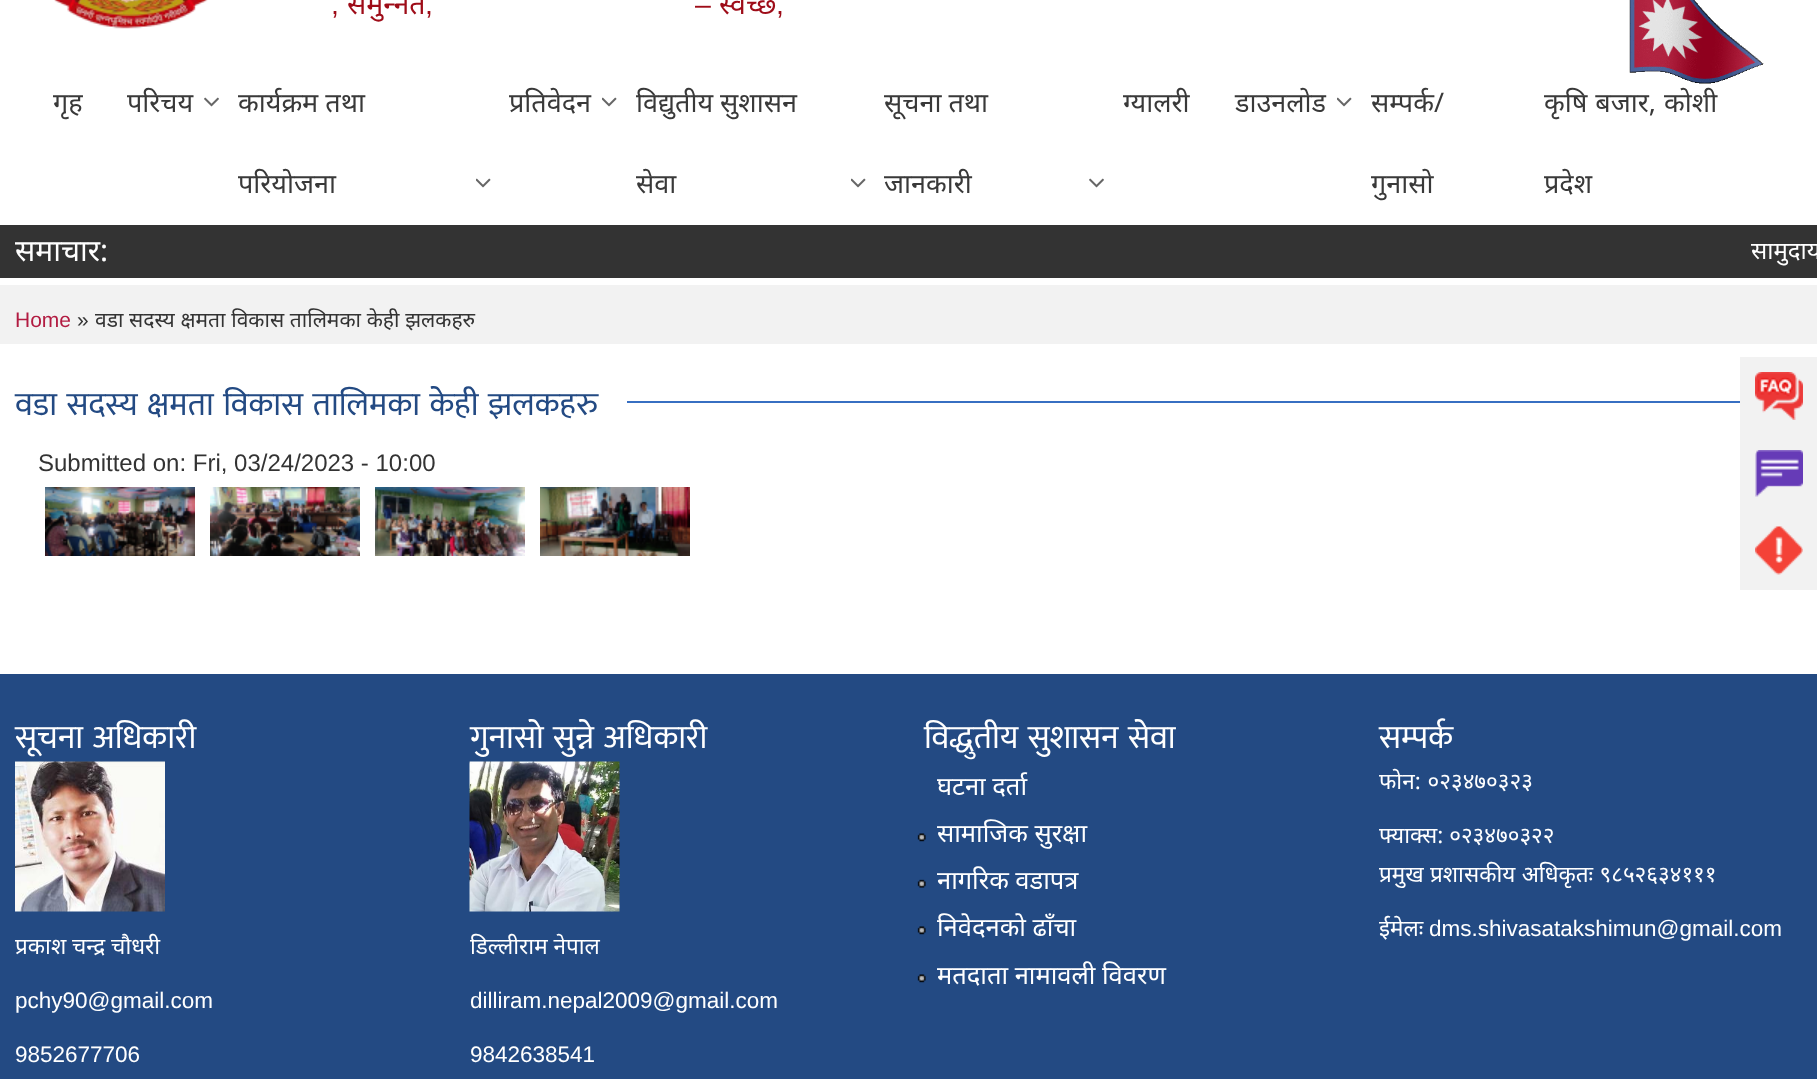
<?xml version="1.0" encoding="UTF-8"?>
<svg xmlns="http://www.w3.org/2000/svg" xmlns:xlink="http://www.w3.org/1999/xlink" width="1817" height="1079">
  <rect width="100%" height="100%" fill="#ffffff" />
  <image x="54" y="0" width="154" height="29" xlink:href="image1.png" />
  <image x="1629" y="0" width="135" height="84" xlink:href="image2.png" />
  <image x="204" y="97" width="15" height="10" xlink:href="image3.png" />
  <image x="476" y="178" width="15" height="10" xlink:href="image4.png" />
  <image x="602" y="97" width="15" height="10" xlink:href="image4.png" />
  <image x="851" y="178" width="15" height="10" xlink:href="image4.png" />
  <image x="1089" y="178" width="15" height="10" xlink:href="image3.png" />
  <image x="1337" y="97" width="15" height="10" xlink:href="image4.png" />
  <rect y="225" width="1817" height="53" fill="#333333" />
  <rect y="285" width="1817" height="59" fill="#f2f2f2" />
  <rect x="627" y="401" width="1113" height="2" fill="#376fc2" />
  <image x="45" y="487" width="150" height="69" xlink:href="image5.png" />
  <image x="210" y="487" width="150" height="69" xlink:href="image6.png" />
  <image x="375" y="487" width="150" height="69" xlink:href="image7.png" />
  <image x="540" y="487" width="150" height="69" xlink:href="image8.png" />
  <rect x="1740" y="357" width="77" height="233" fill="#f2f2f2" />
  <image x="1755" y="372" width="48" height="48" xlink:href="image9.png" />
  <image x="1755" y="450" width="48" height="47" xlink:href="image10.png" />
  <image x="1755" y="526" width="48" height="49" xlink:href="image11.png" />
  <rect y="674" width="1817" height="405" fill="#234a83" />
  <image x="15" y="761" width="150" height="151" xlink:href="image12.png" />
  <image x="469" y="761" width="151" height="151" xlink:href="image13.png" />
  <image x="917" y="833" width="9" height="9" xlink:href="image14.png" />
  <image x="917" y="879" width="9" height="9" xlink:href="image15.png" />
  <image x="917" y="926" width="9" height="9" xlink:href="image14.png" />
  <image x="917" y="974" width="9" height="9" xlink:href="image14.png" />
  <text x="347" y="14" style="font-family: Noto Sans; font-size: 28.5px; fill: #9e0c18">समुन्‍नत</text>
  <text x="695" y="14" style="font-family: Liberation Sans; font-size: 28.5px; fill: #9e0c18">–</text>
  <text x="719" y="14" style="font-family: Noto Sans; font-size: 28.5px; fill: #9e0c18">स्वच्छ</text>
  <text x="331" y="14" style="font-family: Liberation Sans; font-size: 28.5px; fill: #9e0c18">,</text>
  <text x="425" y="14" style="font-family: Liberation Sans; font-size: 28.5px; fill: #9e0c18">,</text>
  <text x="776" y="14" style="font-family: Liberation Sans; font-size: 28.5px; fill: #9e0c18">,</text>
  <text x="53" y="112" style="font-family: Noto Sans; font-size: 27px; fill: #393939">गृह</text>
  <text x="127" y="112" style="font-family: Noto Sans; font-size: 27px; fill: #393939">परिचय</text>
  <text x="238" y="112" style="font-family: Noto Sans; font-size: 27px; fill: #393939">कार्यक्रम तथा</text>
  <text x="238" y="193" style="font-family: Noto Sans; font-size: 27px; fill: #393939">परियोजना</text>
  <text x="509" y="112" style="font-family: Noto Sans; font-size: 27px; fill: #393939">प्रतिवेदन</text>
  <text x="636" y="112" style="font-family: Noto Sans; font-size: 27px; fill: #393939">विद्युतीय सुशासन</text>
  <text x="636" y="193" style="font-family: Noto Sans; font-size: 27px; fill: #393939">सेवा</text>
  <text x="884" y="112" style="font-family: Noto Sans; font-size: 27px; fill: #393939">सूचना तथा</text>
  <text x="884" y="193" style="font-family: Noto Sans; font-size: 27px; fill: #393939">जानकारी</text>
  <text x="1123" y="112" style="font-family: Noto Sans; font-size: 27px; fill: #393939">ग्यालरी</text>
  <text x="1235" y="112" style="font-family: Noto Sans; font-size: 27px; fill: #393939">डाउनलाेड</text>
  <text x="1371" y="112" style="font-family: Noto Sans; font-size: 27px; fill: #393939">सम्पर्क/</text>
  <text x="1371" y="193" style="font-family: Noto Sans; font-size: 27px; fill: #393939">गुनासाे</text>
  <text x="1544" y="112" word-spacing="1" style="font-family: Noto Sans; font-size: 27px; fill: #393939">कृषि बजार, कोशी</text>
  <text x="1544" y="193" style="font-family: Noto Sans; font-size: 27px; fill: #393939">प्रदेश</text>
  <text x="15" y="261" style="font-family: Noto Sans; font-size: 30px; fill: #ffffff">समाचार:</text>
  <text x="1751" y="259" style="font-family: Noto Sans; font-size: 24px; fill: #ffffff">सामुदाय</text>
  <text x="15" y="327" style="font-family: Liberation Sans; font-size: 21px; fill: #b21c42">Home</text>
  <text x="77" y="327" style="font-family: Liberation Sans; font-size: 21px; fill: #333333">»</text>
  <text x="95" y="327" word-spacing="0.25" style="font-family: Noto Sans; font-size: 21px; fill: #333333">वडा सदस्य क्षमता विकास तालिमका केही झलकहरु</text>
  <text x="15" y="415" word-spacing="2" style="font-family: Mukta; font-size: 33px; fill: #234a83">वडा सदस्य क्षमता विकास तालिमका केही झलकहरु</text>
  <text x="38" y="471" style="font-family: Liberation Sans; font-size: 24px; fill: #333333">Submitted on: Fri, 03/24/2023 - 10:00</text>
  <text x="15" y="748" word-spacing="2" style="font-family: Mukta; font-size: 33px; fill: #ffffff">सूचना अधिकारी</text>
  <text x="15" y="954" style="font-family: Noto Sans; font-size: 22.5px; fill: #ffffff">प्रकाश चन्द्र चौधरी</text>
  <text x="15" y="1008" style="font-family: Liberation Sans; font-size: 22.5px; fill: #ffffff">pchy90@gmail.com</text>
  <text x="15" y="1062" style="font-family: Liberation Sans; font-size: 22.5px; fill: #ffffff">9852677706</text>
  <text x="470" y="748" word-spacing="2" style="font-family: Mukta; font-size: 33px; fill: #ffffff">गुनासो सुन्ने अधिकारी</text>
  <text x="470" y="954" style="font-family: Noto Sans; font-size: 22.5px; fill: #ffffff">डिल्लीराम नेपाल</text>
  <text x="470" y="1008" style="font-family: Liberation Sans; font-size: 22.5px; fill: #ffffff">dilliram.nepal2009@gmail.com</text>
  <text x="470" y="1062" style="font-family: Liberation Sans; font-size: 22.5px; fill: #ffffff">9842638541</text>
  <text x="924" y="748" word-spacing="2" style="font-family: Mukta; font-size: 33px; fill: #ffffff">विद्धुतीय सुशासन सेवा</text>
  <text x="937" y="795" style="font-family: Noto Sans; font-size: 25.5px; fill: #ffffff">घटना दर्ता</text>
  <text x="937" y="842" style="font-family: Noto Sans; font-size: 25.5px; fill: #ffffff">सामाजिक सुरक्षा</text>
  <text x="937" y="889" style="font-family: Noto Sans; font-size: 25.5px; fill: #ffffff">नागरिक वडापत्र</text>
  <text x="937" y="936" style="font-family: Noto Sans; font-size: 25.5px; fill: #ffffff">निवेदनको ढाँचा</text>
  <text x="937" y="984" style="font-family: Noto Sans; font-size: 25.5px; fill: #ffffff">मतदाता नामावली विवरण</text>
  <text x="1379" y="748" style="font-family: Mukta; font-size: 33px; fill: #ffffff">सम्पर्क</text>
  <text x="1379" y="789" word-spacing="1" style="font-family: Noto Sans; font-size: 22.5px; fill: #ffffff">फोन: ०२३४७०३२३</text>
  <text x="1379" y="843" style="font-family: Noto Sans; font-size: 22.5px; fill: #ffffff">फ्याक्स: ०२३४७०३२२</text>
  <text x="1379" y="882" word-spacing="0.5" style="font-family: Noto Sans; font-size: 22.5px; fill: #ffffff">प्रमुख प्रशासकीय अधिकृतः ९८५२६३४१११</text>
  <text x="1379" y="936" style="font-family: Noto Sans; font-size: 22.5px; fill: #ffffff">ईमेलः</text>
  <text x="1429" y="936" style="font-family: Liberation Sans; font-size: 22.5px; fill: #ffffff">dms.shivasatakshimun@gmail.com</text>
</svg>
